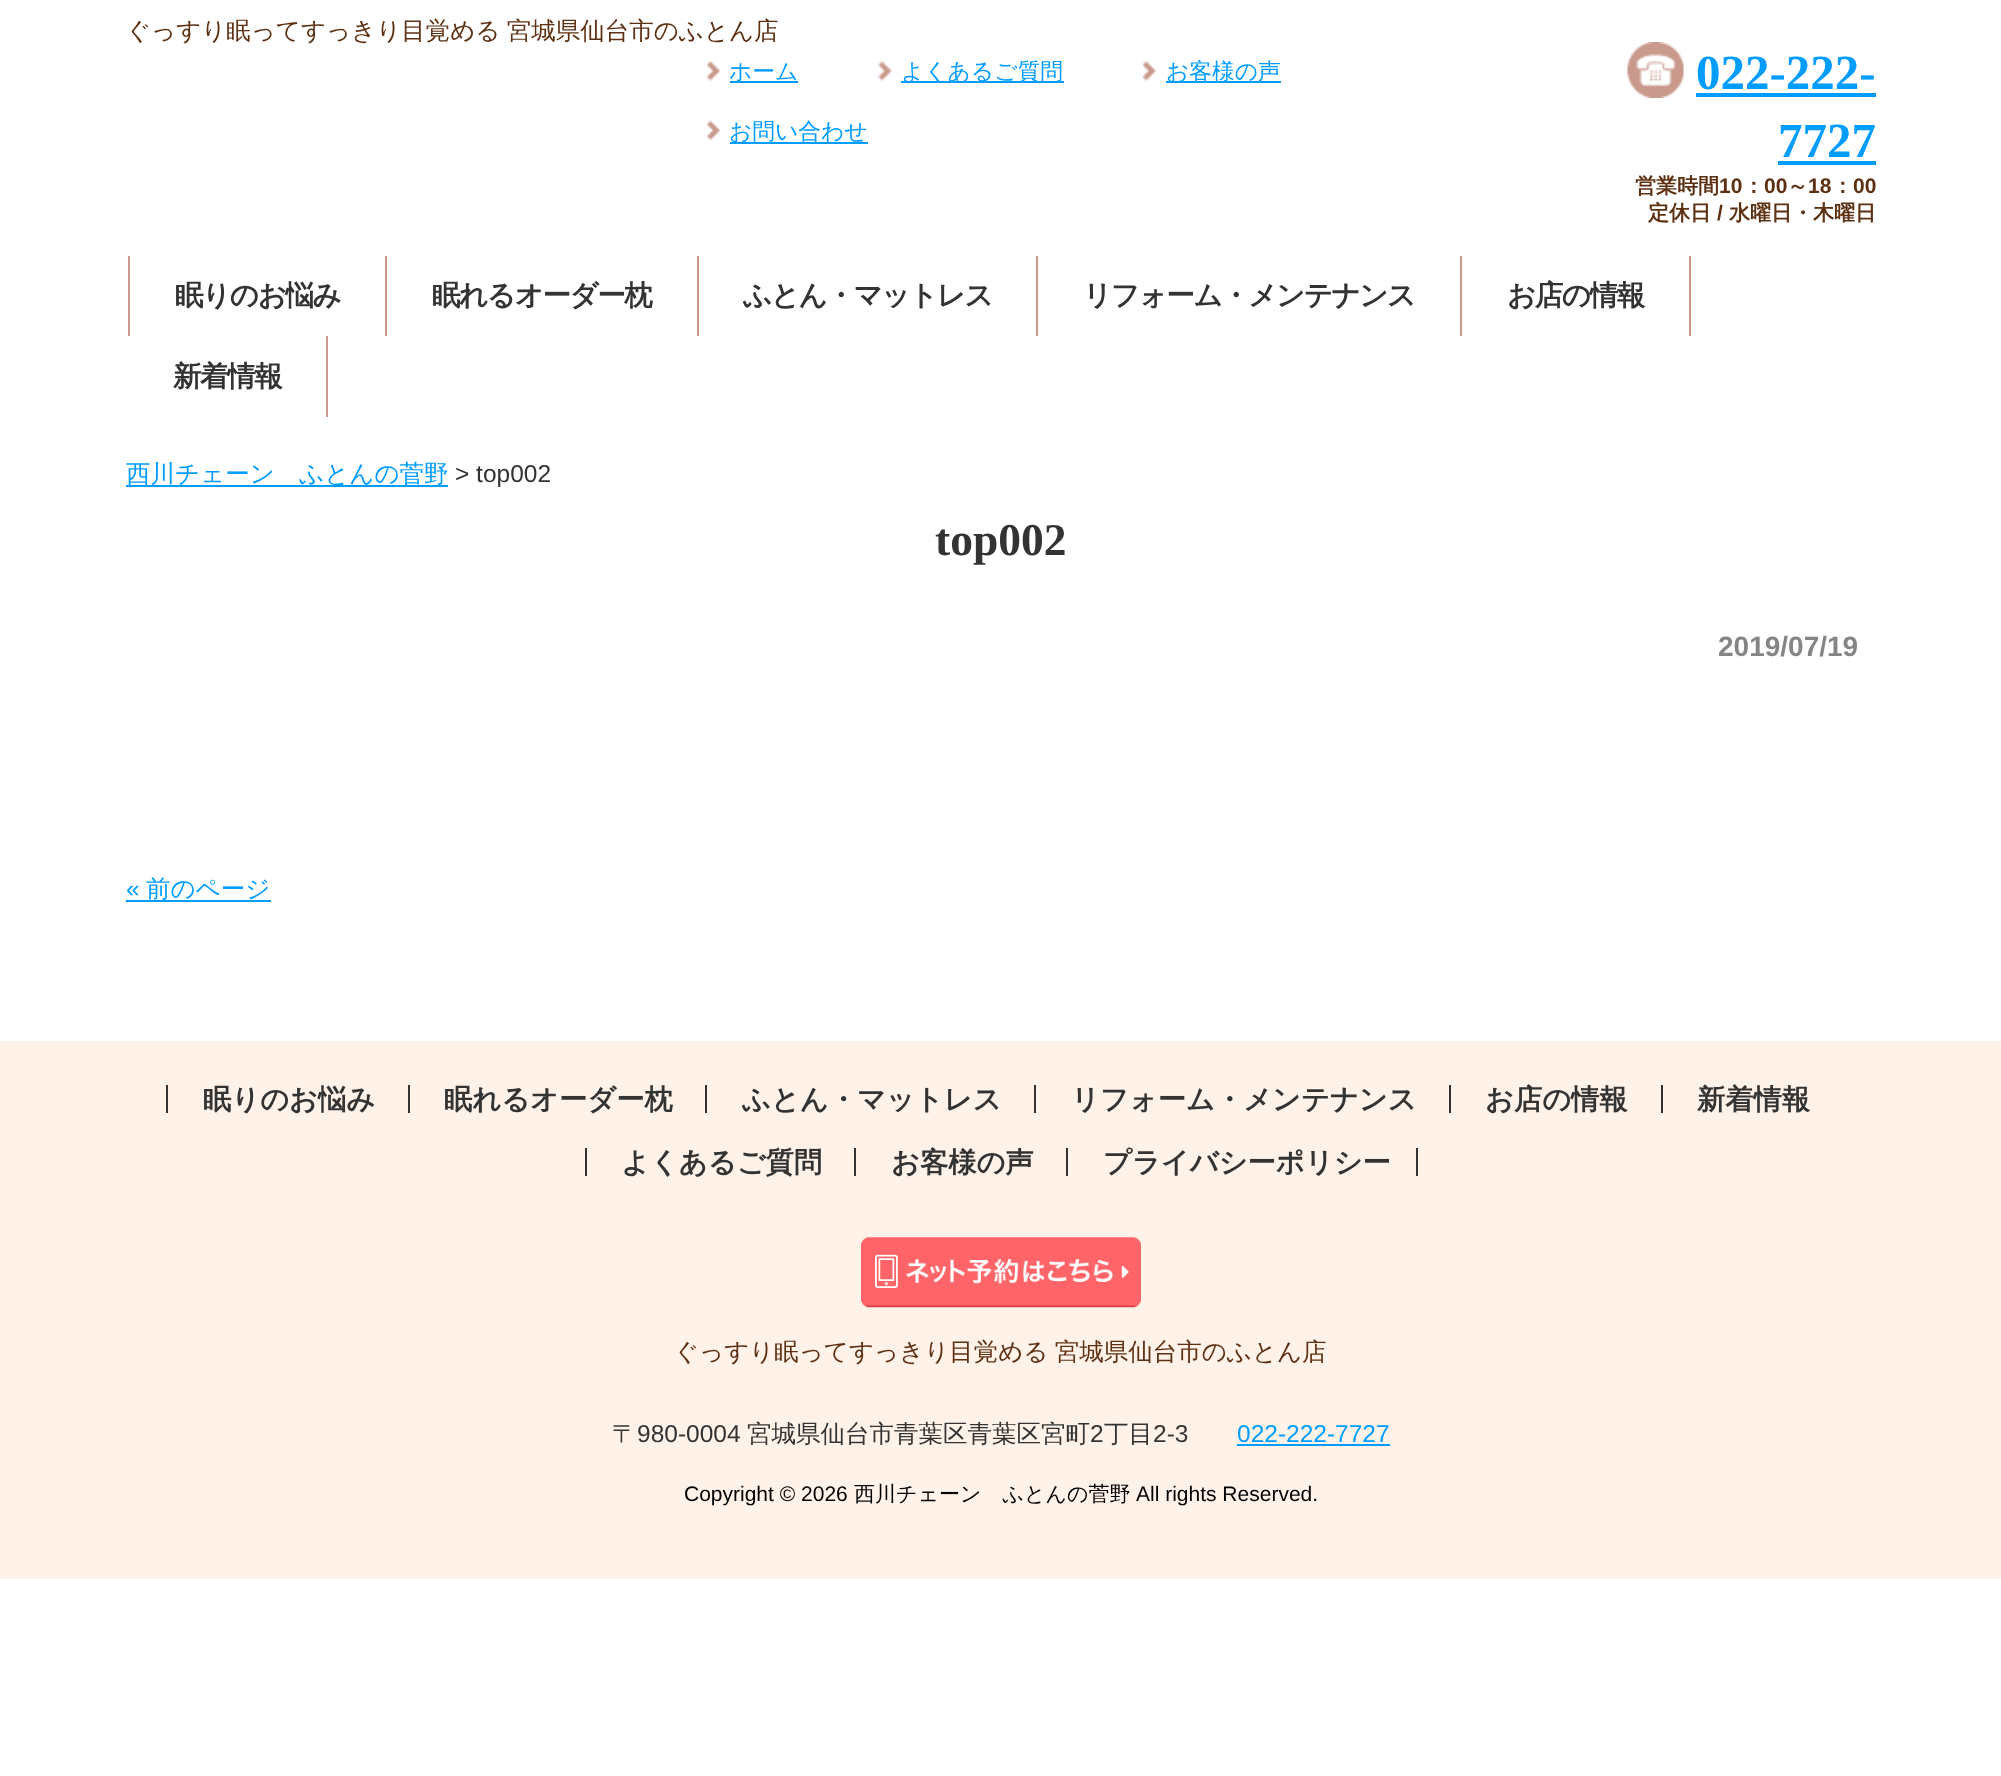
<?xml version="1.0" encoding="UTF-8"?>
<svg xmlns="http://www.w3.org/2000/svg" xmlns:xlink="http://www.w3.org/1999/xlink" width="2001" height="1776">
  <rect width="100%" height="100%" fill="#ffffff" />
  <image x="707" y="61" width="14" height="20" xlink:href="image1.png" />
  <rect x="730" y="81" width="68" height="2" fill="#009dff" />
  <image x="878" y="61" width="15" height="20" xlink:href="image2.png" />
  <rect x="901" y="81" width="163" height="2" fill="#009dff" />
  <image x="1142" y="61" width="15" height="20" xlink:href="image3.png" />
  <rect x="1166" y="81" width="115" height="2" fill="#009dff" />
  <image x="707" y="120" width="14" height="20" xlink:href="image4.png" />
  <rect x="730" y="142" width="138" height="2" fill="#009dff" />
  <image x="1627" y="42" width="57" height="56" xlink:href="image5.png" />
  <rect x="1696" y="93" width="180" height="4" fill="#009dff" />
  <rect x="1778" y="161" width="98" height="4" fill="#009dff" />
  <rect x="385" y="256" width="2" height="80" fill="#c9998c" />
  <rect x="128" y="256" width="2" height="80" fill="#c9998c" />
  <rect x="697" y="256" width="2" height="80" fill="#c9998c" />
  <rect x="1036" y="256" width="2" height="80" fill="#c9998c" />
  <rect x="1460" y="256" width="2" height="80" fill="#c9998c" />
  <rect x="1689" y="256" width="2" height="80" fill="#c9998c" />
  <rect x="326" y="336" width="2" height="81" fill="#c9998c" />
  <rect x="126" y="485" width="322" height="2" fill="#009dff" />
  <rect x="126" y="900" width="145" height="2" fill="#009dff" />
  <rect y="1041" width="2001" height="538" fill="#fff2e8" />
  <rect x="166" y="1085" width="2" height="28" fill="#333333" />
  <rect x="408" y="1085" width="2" height="28" fill="#333333" />
  <rect x="705" y="1085" width="2" height="28" fill="#333333" />
  <rect x="1034" y="1085" width="2" height="28" fill="#333333" />
  <rect x="1449" y="1085" width="2" height="28" fill="#333333" />
  <rect x="1661" y="1085" width="2" height="28" fill="#333333" />
  <rect x="585" y="1148" width="2" height="28" fill="#333333" />
  <rect x="854" y="1148" width="2" height="28" fill="#333333" />
  <rect x="1416" y="1148" width="2" height="28" fill="#333333" />
  <rect x="1066" y="1148" width="2" height="28" fill="#333333" />
  <image x="861" y="1237" width="280" height="71" xlink:href="image6.png" />
  <rect x="1237" y="1444" width="153" height="2" fill="#009dff" />
  <text x="126" y="39" word-spacing="-1" style="font-family: WenQuanYi Zen Hei; font-size: 24.5px; font-weight: 500; fill: #5e3012">ぐっすり眠ってすっきり目覚める 宮城県仙台市のふとん店</text>
  <text x="729" y="79" style="font-family: WenQuanYi Zen Hei; font-size: 22.75px; font-weight: 500; fill: #009dff">ホーム</text>
  <text x="901" y="79" style="font-family: WenQuanYi Zen Hei; font-size: 22.75px; font-weight: 500; fill: #009dff">よくあるご質問</text>
  <text x="1166" y="79" style="font-family: WenQuanYi Zen Hei; font-size: 22.75px; font-weight: 500; fill: #009dff">お客様の声</text>
  <text x="729" y="139" style="font-family: WenQuanYi Zen Hei; font-size: 22.75px; font-weight: 500; fill: #009dff">お問い合わせ</text>
  <text x="1696" y="89" style="font-family: Liberation Serif; font-size: 49px; font-weight: bold; fill: #009dff">022-222-</text>
  <text x="1778" y="157" style="font-family: Liberation Serif; font-size: 49px; font-weight: bold; fill: #009dff">7727</text>
  <text x="1635" y="193" style="font-family: WenQuanYi Zen Hei; font-size: 21px; font-weight: bold; fill: #5e3012">営業時間</text>
  <text x="1719" y="193" style="font-family: Liberation Sans; font-size: 21px; font-weight: bold; fill: #5e3012">10</text>
  <text x="1743" y="193" style="font-family: WenQuanYi Zen Hei; font-size: 21px; font-weight: bold; fill: #5e3012">：</text>
  <text x="1764" y="193" style="font-family: Liberation Sans; font-size: 21px; font-weight: bold; fill: #5e3012">00</text>
  <text x="1787" y="193" style="font-family: WenQuanYi Zen Hei; font-size: 21px; font-weight: bold; fill: #5e3012">～</text>
  <text x="1808" y="193" style="font-family: Liberation Sans; font-size: 21px; font-weight: bold; fill: #5e3012">18</text>
  <text x="1832" y="193" style="font-family: WenQuanYi Zen Hei; font-size: 21px; font-weight: bold; fill: #5e3012">：</text>
  <text x="1853" y="193" style="font-family: Liberation Sans; font-size: 21px; font-weight: bold; fill: #5e3012">00</text>
  <text x="1648" y="220" style="font-family: WenQuanYi Zen Hei; font-size: 21px; font-weight: bold; fill: #5e3012">定休日</text>
  <text x="1717" y="220" style="font-family: Liberation Sans; font-size: 21px; font-weight: bold; fill: #5e3012">/</text>
  <text x="1729" y="220" style="font-family: WenQuanYi Zen Hei; font-size: 21px; font-weight: bold; fill: #5e3012">水曜日・木曜日</text>
  <text x="175" y="305" style="font-family: WenQuanYi Zen Hei; font-size: 28.5px; font-weight: bold; letter-spacing: -1.4px; fill: #333333">眠りのお悩み</text>
  <text x="432" y="305" style="font-family: WenQuanYi Zen Hei; font-size: 28.5px; font-weight: bold; letter-spacing: -1.4px; fill: #333333">眠れるオーダー枕</text>
  <text x="743" y="305" style="font-family: WenQuanYi Zen Hei; font-size: 28.5px; font-weight: bold; letter-spacing: -1.4px; fill: #333333">ふとん・マットレス</text>
  <text x="1083" y="305" style="font-family: WenQuanYi Zen Hei; font-size: 28.5px; font-weight: bold; letter-spacing: -1.4px; fill: #333333">リフォーム・メンテナンス</text>
  <text x="1507" y="305" style="font-family: WenQuanYi Zen Hei; font-size: 28.5px; font-weight: bold; letter-spacing: -1.4px; fill: #333333">お店の情報</text>
  <text x="173" y="386" style="font-family: WenQuanYi Zen Hei; font-size: 28.5px; font-weight: bold; letter-spacing: -1.4px; fill: #333333">新着情報</text>
  <text x="126" y="482" style="font-family: WenQuanYi Zen Hei; font-size: 24.5px; font-weight: 500; fill: #009dff">西川チェーン　ふとんの菅野</text>
  <text x="455" y="482" style="font-family: Liberation Sans; font-size: 24.5px; fill: #333333">&gt; top002</text>
  <text x="935" y="555" style="font-family: Liberation Serif; font-size: 45.5px; font-weight: bold; fill: #333333">top002</text>
  <text x="1718" y="656" style="font-family: Liberation Sans; font-size: 28px; font-weight: bold; fill: #858585">2019/07/19</text>
  <text x="126" y="897" style="font-family: Liberation Sans; font-size: 24.5px; fill: #009dff">«</text>
  <text x="146" y="897" style="font-family: WenQuanYi Zen Hei; font-size: 24.5px; font-weight: 500; fill: #009dff">前のページ</text>
  <text x="203" y="1109" style="font-family: WenQuanYi Zen Hei; font-size: 28.25px; font-weight: bold; fill: #333333">眠りのお悩み</text>
  <text x="444" y="1109" style="font-family: WenQuanYi Zen Hei; font-size: 28.25px; font-weight: bold; fill: #333333">眠れるオーダー枕</text>
  <text x="742" y="1109" style="font-family: WenQuanYi Zen Hei; font-size: 28.25px; font-weight: bold; fill: #333333">ふとん・マットレス</text>
  <text x="1071" y="1109" style="font-family: WenQuanYi Zen Hei; font-size: 28.25px; font-weight: bold; fill: #333333">リフォーム・メンテナンス</text>
  <text x="1485" y="1109" style="font-family: WenQuanYi Zen Hei; font-size: 28.25px; font-weight: bold; fill: #333333">お店の情報</text>
  <text x="1697" y="1109" style="font-family: WenQuanYi Zen Hei; font-size: 28.25px; font-weight: bold; fill: #333333">新着情報</text>
  <text x="621" y="1172" style="font-family: WenQuanYi Zen Hei; font-size: 28.25px; font-weight: bold; fill: #333333">よくあるご質問</text>
  <text x="891" y="1172" style="font-family: WenQuanYi Zen Hei; font-size: 28.25px; font-weight: bold; fill: #333333">お客様の声</text>
  <text x="1103" y="1172" style="font-family: WenQuanYi Zen Hei; font-size: 28.25px; font-weight: bold; fill: #333333">プライバシーポリシー</text>
  <text x="674" y="1360" word-spacing="-1" style="font-family: WenQuanYi Zen Hei; font-size: 24.5px; font-weight: 500; fill: #5e3012">ぐっすり眠ってすっきり目覚める 宮城県仙台市のふとん店</text>
  <text x="612" y="1442" style="font-family: WenQuanYi Zen Hei; font-size: 24.5px; font-weight: 500; fill: #333333">〒</text>
  <text x="637" y="1442" style="font-family: Liberation Sans; font-size: 24.5px; fill: #333333">980-0004</text>
  <text x="747" y="1442" style="font-family: WenQuanYi Zen Hei; font-size: 24.5px; font-weight: 500; fill: #333333">宮城県仙台市青葉区青葉区宮町</text>
  <text x="1090" y="1442" style="font-family: Liberation Sans; font-size: 24.5px; fill: #333333">2</text>
  <text x="1104" y="1442" style="font-family: WenQuanYi Zen Hei; font-size: 24.5px; font-weight: 500; fill: #333333">丁目</text>
  <text x="1153" y="1442" style="font-family: Liberation Sans; font-size: 24.5px; fill: #333333">2-3</text>
  <text x="1237" y="1442" style="font-family: Liberation Sans; font-size: 24.5px; fill: #009dff">022-222-7727</text>
  <text x="684" y="1501" style="font-family: Liberation Sans; font-size: 21px; fill: #000000">Copyright © 2026</text>
  <text x="854" y="1501" style="font-family: WenQuanYi Zen Hei; font-size: 21px; font-weight: 500; fill: #000000">西川チェーン　ふとんの菅野</text>
  <text x="1136" y="1501" style="font-family: Liberation Sans; font-size: 21px; fill: #000000">All rights Reserved.</text>
</svg>
